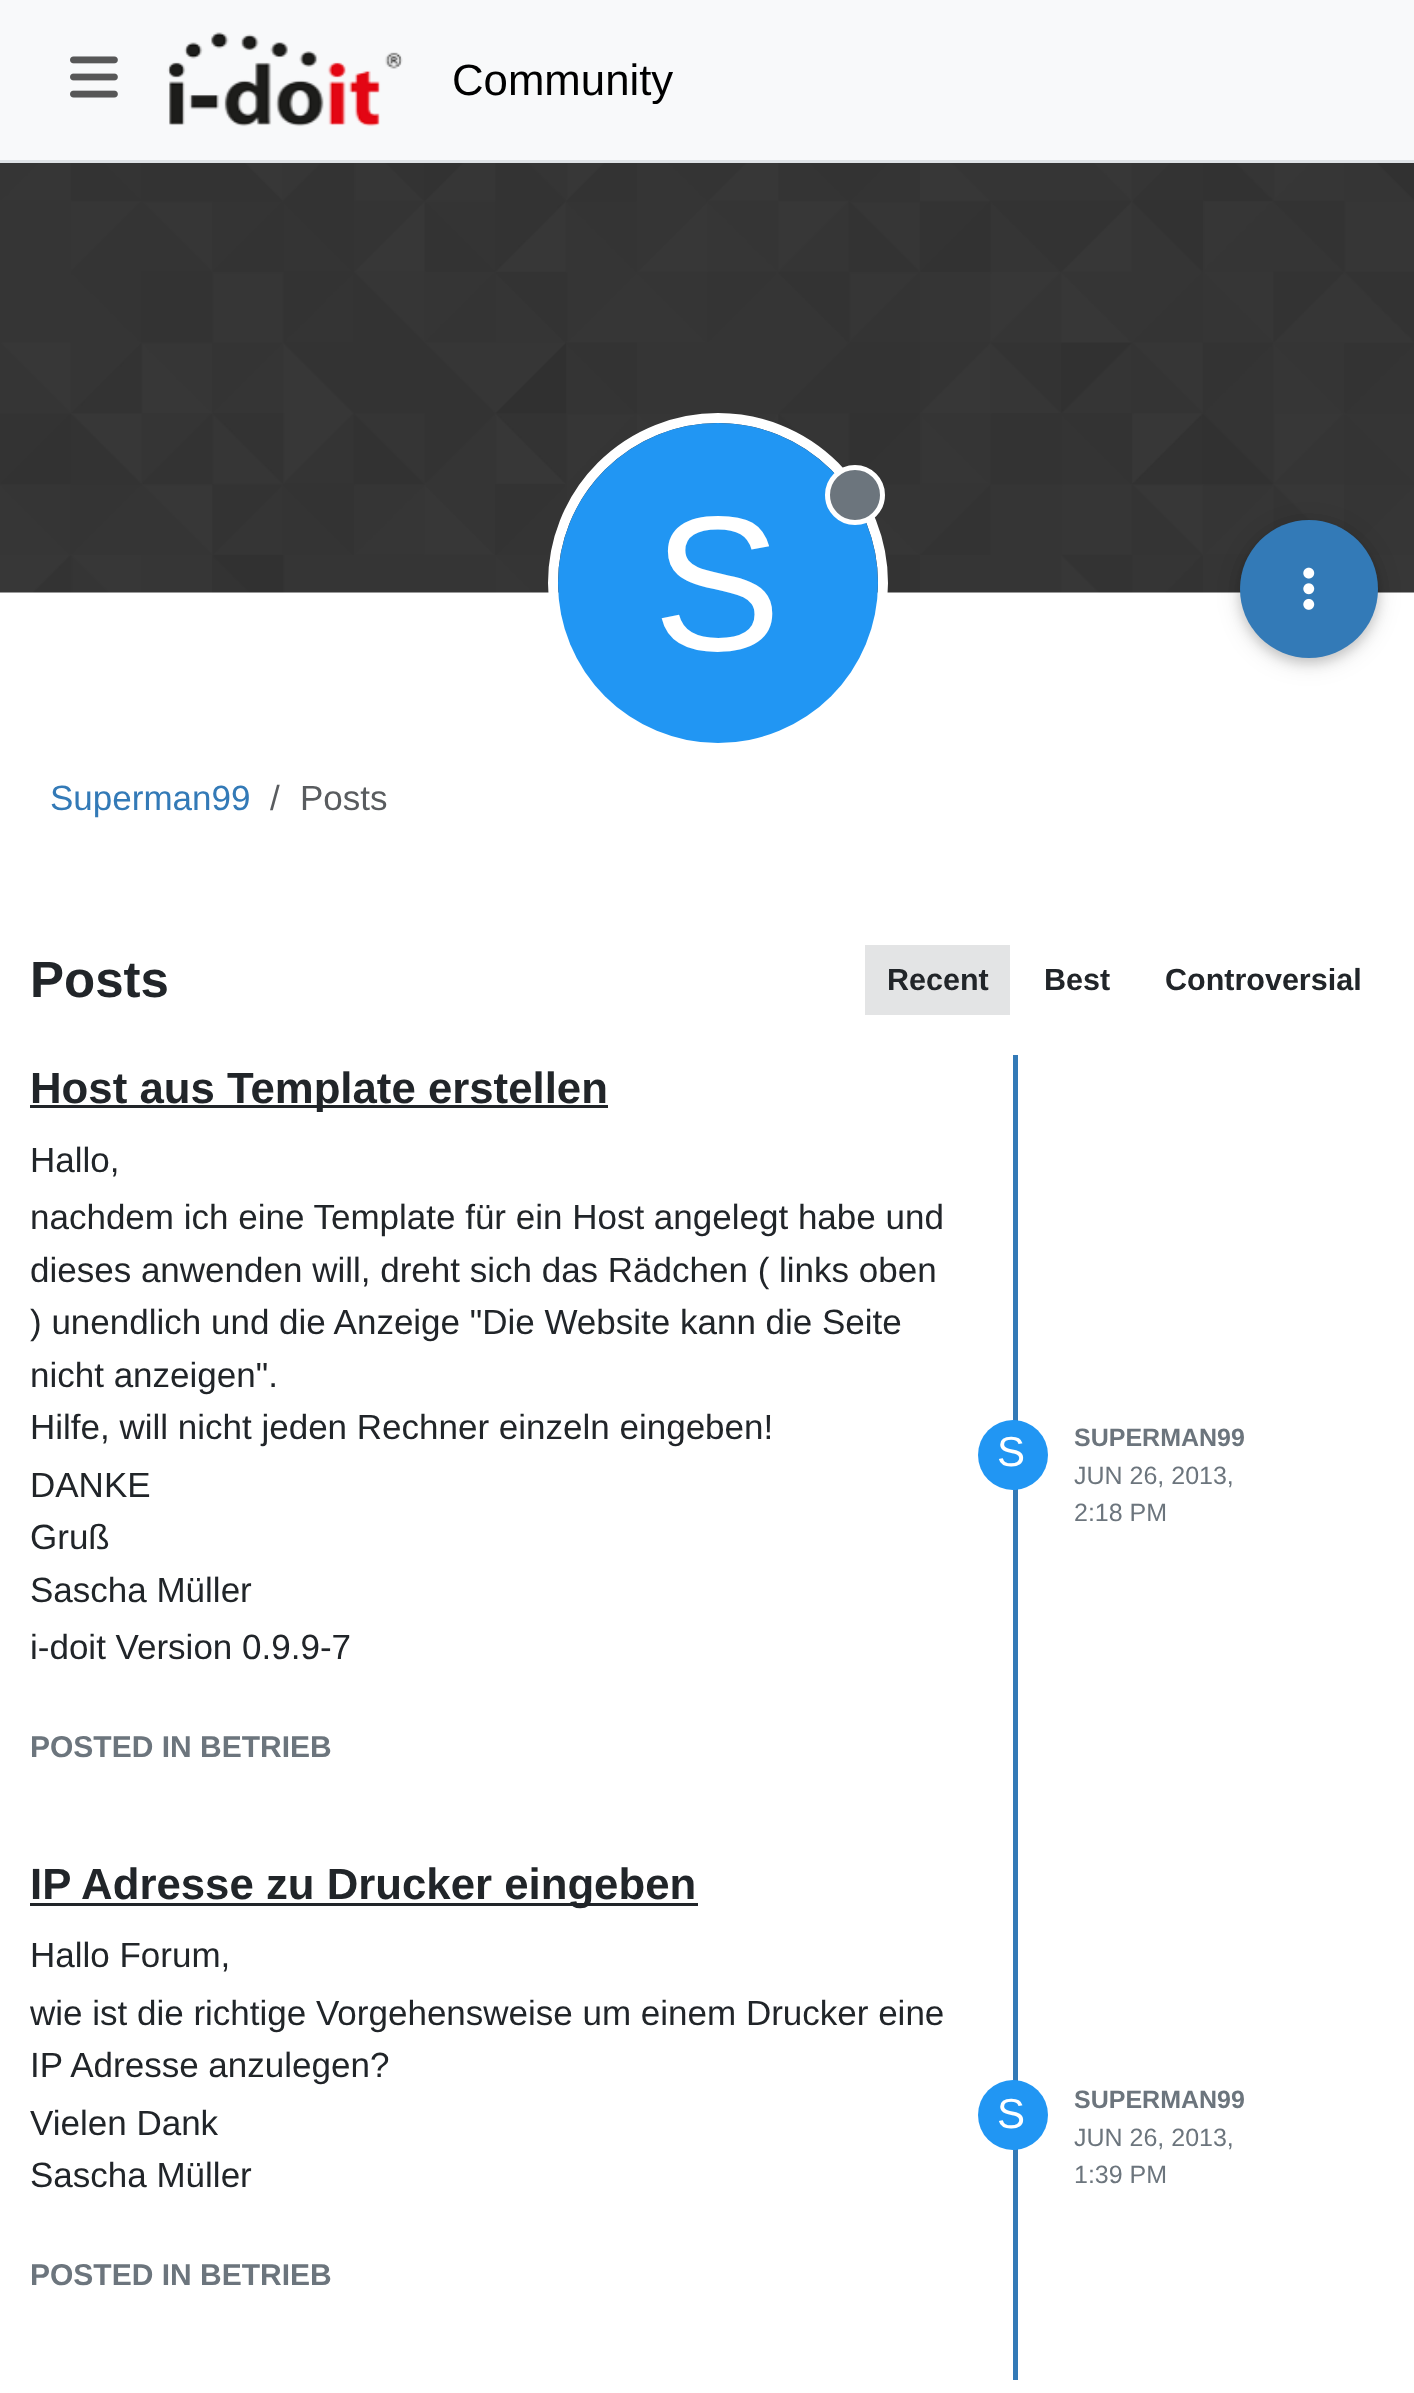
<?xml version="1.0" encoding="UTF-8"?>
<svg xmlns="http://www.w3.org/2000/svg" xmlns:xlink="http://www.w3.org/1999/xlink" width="1414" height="2393">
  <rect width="100%" height="100%" fill="#ffffff" />
  <rect width="1414" height="160" fill="#f8f9fa" />
  <rect y="160" width="1414" height="3" fill="#dee2e6" />
  <image x="70" y="56" width="48" height="42" xlink:href="image1.png" />
  <image x="167" y="32" width="236" height="95" xlink:href="image2.png" />
  <image x="0" y="163" width="1414" height="430" xlink:href="image3.png" />
  <circle cx="718" cy="583" r="165" fill="none" stroke="#ffffff" stroke-width="10" />
  <circle cx="718" cy="583" r="160" fill="#2196f3" />
  <circle cx="855" cy="495" r="27.5" fill="#6c757d" stroke="#ffffff" stroke-width="5" />
  <rect x="1240" y="525" width="138" height="138" rx="69" fill="#000000" fill-opacity="0.12" filter="blur(12.5px)" />
  <rect x="1240" y="525" width="138" height="138" rx="69" fill="#000000" fill-opacity="0.16" filter="blur(6px)" />
  <circle cx="1309" cy="589" r="69" fill="#337ab7" />
  <image x="1303" y="567" width="12" height="43" xlink:href="image4.png" />
  <rect x="865" y="945" width="145" height="70" fill="#e3e4e5" />
  <rect x="1013" y="1055" width="5" height="1325" fill="#337ab7" />
  <rect x="30" y="1105" width="578" height="3" fill="#212529" />
  <circle cx="1013" cy="1455" r="35" fill="#2196f3" />
  <rect x="30" y="1903" width="668" height="3" fill="#212529" />
  <circle cx="1013" cy="2115" r="35" fill="#2196f3" />
  <text x="452" y="95" style="font-family: Liberation Sans; font-size: 43.75px; fill: #000000">Community</text>
  <text x="653" y="650" style="font-family: Liberation Sans; font-size: 192px; fill: #ffffff">S</text>
  <text x="50" y="810" style="font-family: Liberation Sans; font-size: 35px; fill: #337ab7">Superman99</text>
  <text x="270" y="810" style="font-family: Liberation Sans; font-size: 35px; fill: #595c5f">/</text>
  <text x="300" y="810" style="font-family: Liberation Sans; font-size: 35px; fill: #595c5f">Posts</text>
  <text x="30" y="997" style="font-family: Liberation Sans; font-size: 51px; font-weight: bold; fill: #212529">Posts</text>
  <text x="887" y="990" style="font-family: Liberation Sans; font-size: 30.5px; font-weight: bold; fill: #212529">Recent</text>
  <text x="1044" y="990" style="font-family: Liberation Sans; font-size: 30.5px; font-weight: bold; fill: #212529">Best</text>
  <text x="1165" y="990" style="font-family: Liberation Sans; font-size: 30.5px; font-weight: bold; fill: #212529">Controversial</text>
  <text x="30" y="1103" style="font-family: Liberation Sans; font-size: 43.75px; font-weight: bold; fill: #212529">Host aus Template erstellen</text>
  <text x="30" y="1172" style="font-family: Liberation Sans; font-size: 35px; fill: #212529">Hallo,</text>
  <text x="30" y="1229" style="font-family: Liberation Sans; font-size: 35px; fill: #212529">nachdem ich eine Template für ein Host angelegt habe und</text>
  <text x="30" y="1282" style="font-family: Liberation Sans; font-size: 35px; fill: #212529">dieses anwenden will, dreht sich das Rädchen ( links oben</text>
  <text x="30" y="1334" style="font-family: Liberation Sans; font-size: 35px; fill: #212529">) unendlich und die Anzeige "Die Website kann die Seite</text>
  <text x="30" y="1387" style="font-family: Liberation Sans; font-size: 35px; fill: #212529">nicht anzeigen".</text>
  <text x="30" y="1439" style="font-family: Liberation Sans; font-size: 35px; fill: #212529">Hilfe, will nicht jeden Rechner einzeln eingeben!</text>
  <text x="30" y="1497" style="font-family: Liberation Sans; font-size: 35px; fill: #212529">DANKE</text>
  <text x="30" y="1549" style="font-family: Liberation Sans; font-size: 35px; fill: #212529">Gruß</text>
  <text x="30" y="1602" style="font-family: Liberation Sans; font-size: 35px; fill: #212529">Sascha Müller</text>
  <text x="30" y="1659" style="font-family: Liberation Sans; font-size: 35px; fill: #212529">i-doit Version 0.9.9-7</text>
  <text x="997" y="1466" style="font-family: Liberation Sans; font-size: 42px; fill: #ffffff">S</text>
  <text x="1074" y="1446" style="font-family: Liberation Sans; font-size: 25px; font-weight: bold; fill: #6c757d">SUPERMAN99</text>
  <text x="1074" y="1484" style="font-family: Liberation Sans; font-size: 25px; fill: #6c757d">JUN 26, 2013,</text>
  <text x="1074" y="1521" style="font-family: Liberation Sans; font-size: 25px; fill: #6c757d">2:18 PM</text>
  <text x="30" y="1757" style="font-family: Liberation Sans; font-size: 30px; font-weight: bold; fill: #6c757d">POSTED IN BETRIEB</text>
  <text x="30" y="1899" style="font-family: Liberation Sans; font-size: 43.75px; font-weight: bold; fill: #212529">IP Adresse zu Drucker eingeben</text>
  <text x="30" y="1967" style="font-family: Liberation Sans; font-size: 35px; fill: #212529">Hallo Forum,</text>
  <text x="30" y="2025" style="font-family: Liberation Sans; font-size: 35px; fill: #212529">wie ist die richtige Vorgehensweise um einem Drucker eine</text>
  <text x="30" y="2077" style="font-family: Liberation Sans; font-size: 35px; fill: #212529">IP Adresse anzulegen?</text>
  <text x="30" y="2135" style="font-family: Liberation Sans; font-size: 35px; fill: #212529">Vielen Dank</text>
  <text x="30" y="2187" style="font-family: Liberation Sans; font-size: 35px; fill: #212529">Sascha Müller</text>
  <text x="997" y="2128" style="font-family: Liberation Sans; font-size: 42px; fill: #ffffff">S</text>
  <text x="1074" y="2108" style="font-family: Liberation Sans; font-size: 25px; font-weight: bold; fill: #6c757d">SUPERMAN99</text>
  <text x="1074" y="2146" style="font-family: Liberation Sans; font-size: 25px; fill: #6c757d">JUN 26, 2013,</text>
  <text x="1074" y="2183" style="font-family: Liberation Sans; font-size: 25px; fill: #6c757d">1:39 PM</text>
  <text x="30" y="2285" style="font-family: Liberation Sans; font-size: 30px; font-weight: bold; fill: #6c757d">POSTED IN BETRIEB</text>
</svg>
